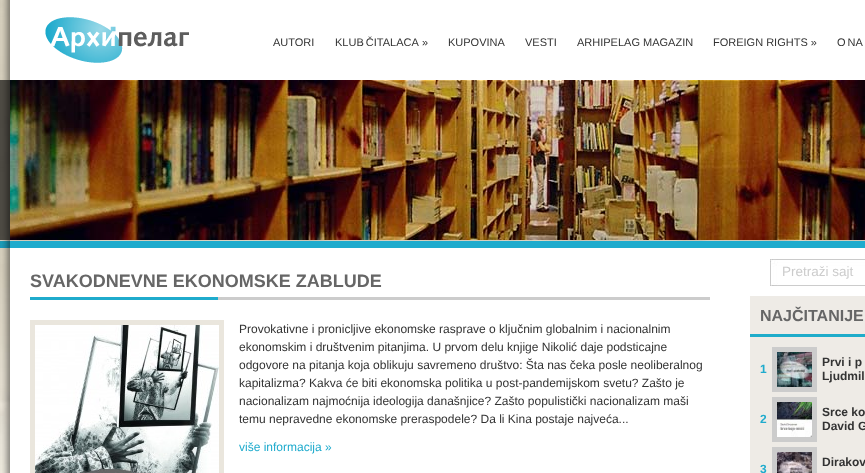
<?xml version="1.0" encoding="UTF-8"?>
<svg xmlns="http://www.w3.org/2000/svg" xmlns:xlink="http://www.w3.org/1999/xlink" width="865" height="473">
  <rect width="100%" height="100%" fill="#ffffff" />
  <image x="0" y="0" width="10" height="473" xlink:href="image1.png" />
  <image x="2" y="0" width="863" height="80" xlink:href="image2.png" />
  <image x="2" y="80" width="863" height="168" xlink:href="image3.png" />
  <image x="10" y="80" width="855" height="160" xlink:href="image4.png" />
  <image x="2" y="248" width="863" height="225" xlink:href="image5.png" />
  <image x="770" y="259" width="95" height="27" xlink:href="image6.png" />
  <image x="30" y="297" width="680" height="3" xlink:href="image7.png" />
  <rect x="30" y="320" width="194" height="153" fill="#eae6dd" />
  <image x="35" y="325" width="184" height="148" xlink:href="image8.png" />
  <rect x="750" y="296" width="115" height="177" fill="#eeebe6" />
  <rect x="750" y="334" width="115" height="3" fill="#1facca" />
  <rect x="772" y="347" width="45" height="45" fill="#cccccc" />
  <image x="777" y="352" width="35" height="35" xlink:href="image9.png" />
  <rect x="772" y="397" width="45" height="45" fill="#cccccc" />
  <image x="777" y="402" width="35" height="35" xlink:href="image10.png" />
  <rect x="772" y="447" width="45" height="26" fill="#cccccc" />
  <image x="777" y="452" width="35" height="21" xlink:href="image11.png" />
  <text x="273" y="46" style="font-family: Liberation Sans; font-size: 11px; fill: #333333">AUTORI</text>
  <text x="335" y="46" word-spacing="-1" style="font-family: Liberation Sans; font-size: 11px; fill: #333333">KLUB ČITALACA</text>
  <text x="422" y="46" style="font-family: Liberation Sans; font-size: 11px; fill: #333333">»</text>
  <text x="448" y="46" style="font-family: Liberation Sans; font-size: 11px; fill: #333333">KUPOVINA</text>
  <text x="525" y="46" style="font-family: Liberation Sans; font-size: 11px; fill: #333333">VESTI</text>
  <text x="577" y="46" style="font-family: Liberation Sans; font-size: 11px; fill: #333333">ARHIPELAG MAGAZIN</text>
  <text x="713" y="46" style="font-family: Liberation Sans; font-size: 11px; fill: #333333">FOREIGN RIGHTS »</text>
  <text x="837" y="46" word-spacing="-1" style="font-family: Liberation Sans; font-size: 11px; fill: #333333">O NA</text>
  <text x="782" y="276" style="font-family: Liberation Sans; font-size: 13.5px; fill: #cccccc">Pretraži sajt</text>
  <text x="30" y="287" style="font-family: Liberation Sans; font-size: 18px; font-weight: bold; fill: #666666">SVAKODNEVNE EKONOMSKE ZABLUDE</text>
  <text x="239" y="333" style="font-family: Liberation Sans; font-size: 12px; fill: #333333">Provokativne i pronicljive ekonomske rasprave o ključnim globalnim i nacionalnim</text>
  <text x="239" y="351" style="font-family: Liberation Sans; font-size: 12px; fill: #333333">ekonomskim i društvenim pitanjima. U prvom delu knjige Nikolić daje podsticajne</text>
  <text x="239" y="369" style="font-family: Liberation Sans; font-size: 12px; fill: #333333">odgovore na pitanja koja oblikuju savremeno društvo: Šta nas čeka posle neoliberalnog</text>
  <text x="239" y="387" style="font-family: Liberation Sans; font-size: 12px; fill: #333333">kapitalizma? Kakva će biti ekonomska politika u post-pandemijskom svetu? Zašto je</text>
  <text x="239" y="405" style="font-family: Liberation Sans; font-size: 12px; fill: #333333">nacionalizam najmoćnija ideologija današnjice? Zašto populistički nacionalizam maši</text>
  <text x="239" y="423" style="font-family: Liberation Sans; font-size: 12px; fill: #333333">temu nepravedne ekonomske preraspodele? Da li Kina postaje najveća...</text>
  <text x="239" y="451" style="font-family: Liberation Sans; font-size: 12px; fill: #1fabcd">više informacija »</text>
  <text x="760" y="321" style="font-family: Liberation Sans; font-size: 16px; font-weight: bold; fill: #666666">NAJČITANIJE</text>
  <text x="760" y="373" style="font-family: Liberation Sans; font-size: 12px; font-weight: bold; fill: #1fabcd">1</text>
  <text x="822" y="366" style="font-family: Liberation Sans; font-size: 12px; font-weight: bold; fill: #333333">Prvi i p</text>
  <text x="822" y="380" style="font-family: Liberation Sans; font-size: 12px; font-weight: bold; fill: #333333">Ljudmil</text>
  <text x="760" y="423" style="font-family: Liberation Sans; font-size: 12px; font-weight: bold; fill: #1fabcd">2</text>
  <text x="822" y="416" style="font-family: Liberation Sans; font-size: 12px; font-weight: bold; fill: #333333">Srce ko</text>
  <text x="822" y="430" style="font-family: Liberation Sans; font-size: 12px; font-weight: bold; fill: #333333">David G</text>
  <text x="822" y="466" style="font-family: Liberation Sans; font-size: 12px; font-weight: bold; fill: #333333">Dirakov</text>
  <text x="760" y="473" style="font-family: Liberation Sans; font-size: 12px; font-weight: bold; fill: #1fabcd">3</text>
</svg>
